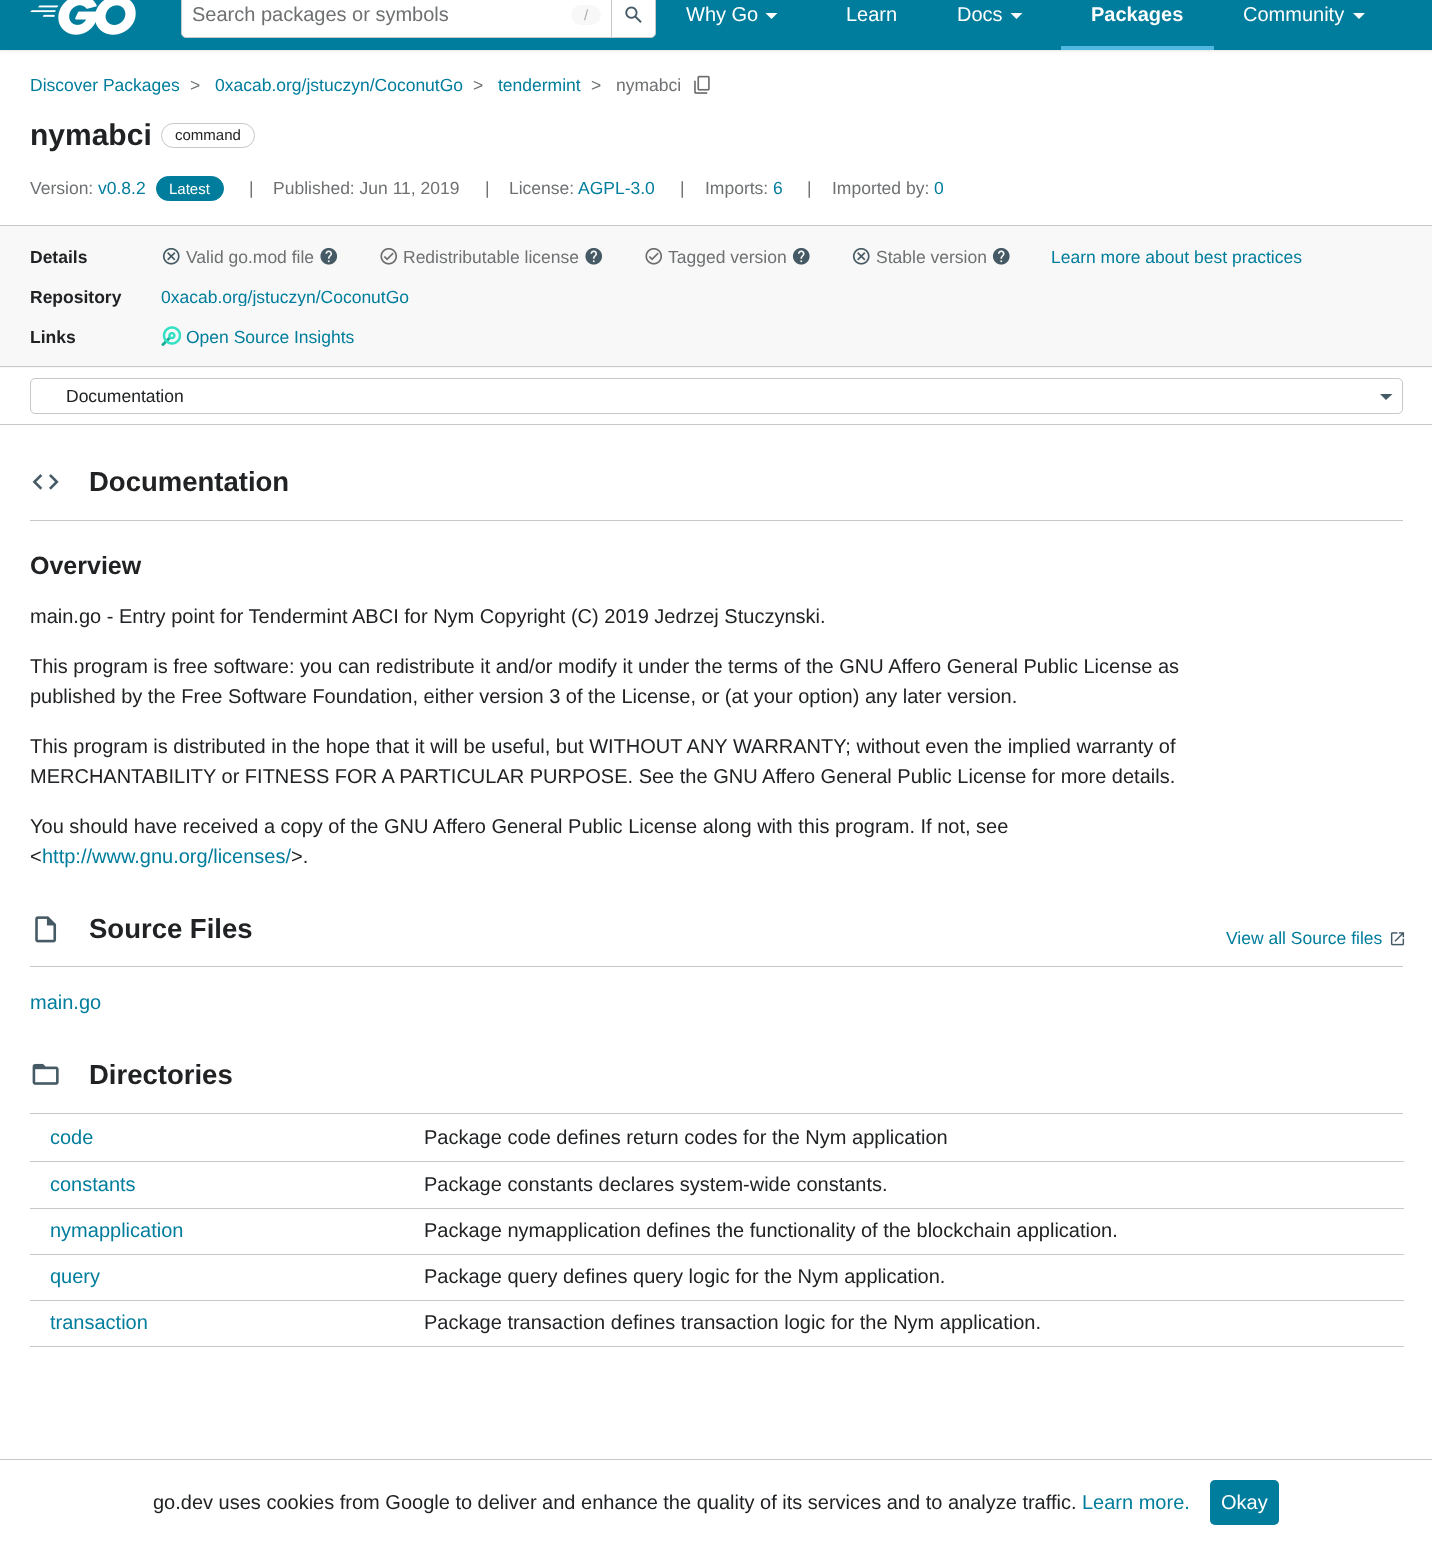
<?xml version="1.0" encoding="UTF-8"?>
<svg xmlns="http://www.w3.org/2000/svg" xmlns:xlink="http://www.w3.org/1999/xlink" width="1432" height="1545">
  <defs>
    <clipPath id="clip1"><rect x="161" y="286" width="249" height="20" /></clipPath>
  </defs>
  <rect width="100%" height="100%" fill="#ffffff" />
  <rect y="-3" width="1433" height="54" fill="#ababab" fill-opacity="0.3" filter="blur(1px)" />
  <rect width="1432" height="50" fill="#007d9c" />
  <image x="30" y="0" width="106" height="35" xlink:href="image1.png" />
  <path d="M 186 -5.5 h 426.5 v 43 h -426.5 c -2.5 0 -4.5 -2 -4.5 -4.5 v -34 c 0 -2.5 2 -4.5 4.5 -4.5 z" fill="#ffffff" stroke="#c6c8ca" />
  <rect x="571" y="5" width="30" height="20" rx="10" fill="#f8f8f8" />
  <path d="M 611.5 -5.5 h 39.5 c 2.5 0 4.5 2 4.5 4.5 v 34 c 0 2.5 -2 4.5 -4.5 4.5 h -39.5 z" fill="#ffffff" stroke="#c6c8ca" />
  <image x="625" y="6" width="17" height="17" xlink:href="image2.png" />
  <path d="M 765.5 13 l 6 6 l 6 -6 z" fill="#ffffff" />
  <path d="M 1010.5 13 l 6 6 l 6 -6 z" fill="#ffffff" />
  <rect x="1061" y="46" width="153" height="4" fill="#50b7e0" />
  <path d="M 1353 13 l 6 6 l 6 -6 z" fill="#ffffff" />
  <rect y="225" width="1432" height="1" fill="#c6c8ca" />
  <image x="694" y="75" width="16" height="19" xlink:href="image3.png" />
  <rect x="161.5" y="123.5" width="93" height="24" rx="12" fill="none" stroke="#c6c8ca" />
  <rect x="156.5" y="176.5" width="67" height="24" rx="12" fill="#007d9c" stroke="#007d9c" />
  <rect y="226" width="1432" height="142" fill="#f8f8f8" />
  <rect y="366" width="1432" height="1" fill="#c6c8ca" />
  <image x="162" y="247" width="18" height="18" xlink:href="image4.png" />
  <image x="320" y="247" width="18" height="18" xlink:href="image5.png" />
  <image x="380" y="247" width="18" height="18" xlink:href="image6.png" />
  <image x="585" y="247" width="18" height="18" xlink:href="image5.png" />
  <image x="645" y="247" width="18" height="18" xlink:href="image6.png" />
  <image x="792" y="247" width="18" height="18" xlink:href="image7.png" />
  <image x="852" y="247" width="18" height="18" xlink:href="image4.png" />
  <image x="992" y="247" width="18" height="18" xlink:href="image7.png" />
  <image x="161" y="326" width="20" height="20" xlink:href="image8.png" />
  <rect y="424" width="1432" height="1" fill="#c6c8ca" />
  <path d="M 1380 394 l 6 6 l 6.5 -6 z" fill="#455a64" />
  <rect x="30.5" y="378.5" width="1372" height="35" rx="4.5" fill="none" stroke="#c6c8ca" />
  <rect x="30" y="520" width="1373" height="1" fill="#c6c8ca" />
  <image x="32" y="474" width="27" height="16" xlink:href="image9.png" />
  <rect x="30" y="966" width="1373" height="1" fill="#c6c8ca" />
  <image x="35" y="916" width="22" height="27" xlink:href="image10.png" />
  <image x="1390" y="932" width="15" height="14" xlink:href="image11.png" />
  <rect x="30" y="1113" width="1373" height="1" fill="#c6c8ca" />
  <image x="32" y="1063" width="27" height="22" xlink:href="image12.png" />
  <rect x="30" y="1161" width="1374" height="1" fill="#c6c8ca" />
  <rect x="30" y="1208" width="1374" height="1" fill="#c6c8ca" />
  <rect x="30" y="1254" width="1374" height="1" fill="#c6c8ca" />
  <rect x="30" y="1300" width="1374" height="1" fill="#c6c8ca" />
  <rect x="30" y="1346" width="1374" height="1" fill="#c6c8ca" />
  <rect y="1459" width="1432" height="1" fill="#c6c8ca" />
  <rect x="1210" y="1480" width="69" height="45" rx="5" fill="#007d9c" />
  <text x="192" y="21" style="font-family: Liberation Sans; font-size: 20px; fill: #6e7072">Search packages or symbols</text>
  <text x="584" y="20" style="font-family: Liberation Sans; font-size: 15px; fill: #aaacae">/</text>
  <text x="686" y="21" style="font-family: Liberation Sans; font-size: 20px; fill: #ffffff">Why Go</text>
  <text x="846" y="21" style="font-family: Liberation Sans; font-size: 20px; fill: #ffffff">Learn</text>
  <text x="957" y="21" style="font-family: Liberation Sans; font-size: 20px; fill: #ffffff">Docs</text>
  <text x="1091" y="21" style="font-family: Liberation Sans; font-size: 20px; font-weight: bold; fill: #ffffff">Packages</text>
  <text x="1243" y="21" style="font-family: Liberation Sans; font-size: 20px; fill: #ffffff">Community</text>
  <text x="30" y="91" style="font-family: Liberation Sans; font-size: 17.5px; fill: #007d9c">Discover Packages</text>
  <text x="190" y="91" style="font-family: Liberation Sans; font-size: 17.5px; fill: #6e7072">&gt;</text>
  <text x="215" y="91" style="font-family: Liberation Sans; font-size: 17.5px; fill: #007d9c">0xacab.org/jstuczyn/CoconutGo</text>
  <text x="473" y="91" style="font-family: Liberation Sans; font-size: 17.5px; fill: #6e7072">&gt;</text>
  <text x="498" y="91" style="font-family: Liberation Sans; font-size: 17.5px; fill: #007d9c">tendermint</text>
  <text x="591" y="91" style="font-family: Liberation Sans; font-size: 17.5px; fill: #6e7072">&gt;</text>
  <text x="616" y="91" style="font-family: Liberation Sans; font-size: 17.5px; fill: #6e7072">nymabci</text>
  <text x="30" y="145" style="font-family: Liberation Sans; font-size: 30px; font-weight: bold; fill: #202224">nymabci</text>
  <text x="175" y="140" style="font-family: Liberation Sans; font-size: 15px; fill: #202224">command</text>
  <text x="30" y="194" style="font-family: Liberation Sans; font-size: 17.5px; fill: #6e7072">Version:</text>
  <text x="98" y="194" style="font-family: Liberation Sans; font-size: 17.5px; fill: #007d9c">v0.8.2</text>
  <text x="169" y="194" style="font-family: Liberation Sans; font-size: 15px; fill: #ffffff">Latest</text>
  <text x="249" y="194" style="font-family: Liberation Sans; font-size: 17.5px; fill: #6e7072">|</text>
  <text x="273" y="194" style="font-family: Liberation Sans; font-size: 17.5px; fill: #6e7072">Published: Jun 11, 2019</text>
  <text x="485" y="194" style="font-family: Liberation Sans; font-size: 17.5px; fill: #6e7072">|</text>
  <text x="509" y="194" style="font-family: Liberation Sans; font-size: 17.5px; fill: #6e7072">License:</text>
  <text x="578" y="194" style="font-family: Liberation Sans; font-size: 17.5px; fill: #007d9c">AGPL-3.0</text>
  <text x="680" y="194" style="font-family: Liberation Sans; font-size: 17.5px; fill: #6e7072">|</text>
  <text x="705" y="194" style="font-family: Liberation Sans; font-size: 17.5px; fill: #6e7072">Imports:</text>
  <text x="773" y="194" style="font-family: Liberation Sans; font-size: 17.5px; fill: #007d9c">6</text>
  <text x="807" y="194" style="font-family: Liberation Sans; font-size: 17.5px; fill: #6e7072">|</text>
  <text x="832" y="194" style="font-family: Liberation Sans; font-size: 17.5px; fill: #6e7072">Imported by:</text>
  <text x="934" y="194" style="font-family: Liberation Sans; font-size: 17.5px; fill: #007d9c">0</text>
  <text x="30" y="263" style="font-family: Liberation Sans; font-size: 17.5px; font-weight: bold; fill: #202224">Details</text>
  <text x="186" y="263" style="font-family: Liberation Sans; font-size: 17.5px; fill: #6e7072">Valid go.mod file</text>
  <text x="403" y="263" style="font-family: Liberation Sans; font-size: 17.5px; fill: #6e7072">Redistributable license</text>
  <text x="668" y="263" style="font-family: Liberation Sans; font-size: 17.5px; fill: #6e7072">Tagged version</text>
  <text x="876" y="263" style="font-family: Liberation Sans; font-size: 17.5px; fill: #6e7072">Stable version</text>
  <text x="1051" y="263" style="font-family: Liberation Sans; font-size: 17.5px; fill: #007d9c">Learn more about best practices</text>
  <text x="30" y="303" style="font-family: Liberation Sans; font-size: 17.5px; font-weight: bold; fill: #202224">Repository</text>
  <g clip-path="url(#clip1)">
    <text x="161" y="303" style="font-family: Liberation Sans; font-size: 17.5px; fill: #007d9c">0xacab.org/jstuczyn/CoconutGo</text>
  </g>
  <text x="30" y="343" style="font-family: Liberation Sans; font-size: 17.5px; font-weight: bold; fill: #202224">Links</text>
  <text x="186" y="343" style="font-family: Liberation Sans; font-size: 17.5px; fill: #007d9c">Open Source Insights</text>
  <text x="66" y="402" style="font-family: Liberation Sans; font-size: 17.5px; fill: #202224">Documentation</text>
  <text x="89" y="491" style="font-family: Liberation Sans; font-size: 27.5px; font-weight: bold; fill: #202224">Documentation</text>
  <text x="30" y="574" style="font-family: Liberation Sans; font-size: 25px; font-weight: bold; fill: #202224">Overview</text>
  <text x="30" y="623" style="font-family: Liberation Sans; font-size: 20px; fill: #202224">main.go - Entry point for Tendermint ABCI for Nym Copyright (C) 2019 Jedrzej Stuczynski.</text>
  <text x="30" y="673" style="font-family: Liberation Sans; font-size: 20px; fill: #202224">This program is free software: you can redistribute it and/or modify it under the terms of the GNU Affero General Public License as</text>
  <text x="30" y="703" style="font-family: Liberation Sans; font-size: 20px; fill: #202224">published by the Free Software Foundation, either version 3 of the License, or (at your option) any later version.</text>
  <text x="30" y="753" style="font-family: Liberation Sans; font-size: 20px; fill: #202224">This program is distributed in the hope that it will be useful, but WITHOUT ANY WARRANTY; without even the implied warranty of</text>
  <text x="30" y="783" style="font-family: Liberation Sans; font-size: 20px; fill: #202224">MERCHANTABILITY or FITNESS FOR A PARTICULAR PURPOSE. See the GNU Affero General Public License for more details.</text>
  <text x="30" y="833" style="font-family: Liberation Sans; font-size: 20px; fill: #202224">You should have received a copy of the GNU Affero General Public License along with this program. If not, see</text>
  <text x="30" y="863" style="font-family: Liberation Sans; font-size: 20px; fill: #202224">&lt;</text>
  <text x="42" y="863" style="font-family: Liberation Sans; font-size: 20px; fill: #007d9c">http://www.gnu.org/licenses/</text>
  <text x="291" y="863" style="font-family: Liberation Sans; font-size: 20px; fill: #202224">&gt;.</text>
  <text x="89" y="938" style="font-family: Liberation Sans; font-size: 27.5px; font-weight: bold; fill: #202224">Source Files</text>
  <text x="1226" y="944" style="font-family: Liberation Sans; font-size: 17.5px; fill: #007d9c">View all Source files</text>
  <text x="30" y="1009" style="font-family: Liberation Sans; font-size: 20px; fill: #007d9c">main.go</text>
  <text x="89" y="1084" style="font-family: Liberation Sans; font-size: 27.5px; font-weight: bold; fill: #202224">Directories</text>
  <text x="50" y="1144" style="font-family: Liberation Sans; font-size: 20px; fill: #007d9c">code</text>
  <text x="424" y="1144" style="font-family: Liberation Sans; font-size: 20px; fill: #202224">Package code defines return codes for the Nym application</text>
  <text x="50" y="1191" style="font-family: Liberation Sans; font-size: 20px; fill: #007d9c">constants</text>
  <text x="424" y="1191" style="font-family: Liberation Sans; font-size: 20px; fill: #202224">Package constants declares system-wide constants.</text>
  <text x="50" y="1237" style="font-family: Liberation Sans; font-size: 20px; fill: #007d9c">nymapplication</text>
  <text x="424" y="1237" style="font-family: Liberation Sans; font-size: 20px; fill: #202224">Package nymapplication defines the functionality of the blockchain application.</text>
  <text x="50" y="1283" style="font-family: Liberation Sans; font-size: 20px; fill: #007d9c">query</text>
  <text x="424" y="1283" style="font-family: Liberation Sans; font-size: 20px; fill: #202224">Package query defines query logic for the Nym application.</text>
  <text x="50" y="1329" style="font-family: Liberation Sans; font-size: 20px; fill: #007d9c">transaction</text>
  <text x="424" y="1329" style="font-family: Liberation Sans; font-size: 20px; fill: #202224">Package transaction defines transaction logic for the Nym application.</text>
  <text x="153" y="1509" style="font-family: Liberation Sans; font-size: 20px; fill: #202224">go.dev uses cookies from Google to deliver and enhance the quality of its services and to analyze traffic.</text>
  <text x="1082" y="1509" style="font-family: Liberation Sans; font-size: 20px; fill: #007d9c">Learn more.</text>
  <text x="1221" y="1509" style="font-family: Liberation Sans; font-size: 20px; fill: #ffffff">Okay</text>
</svg>
